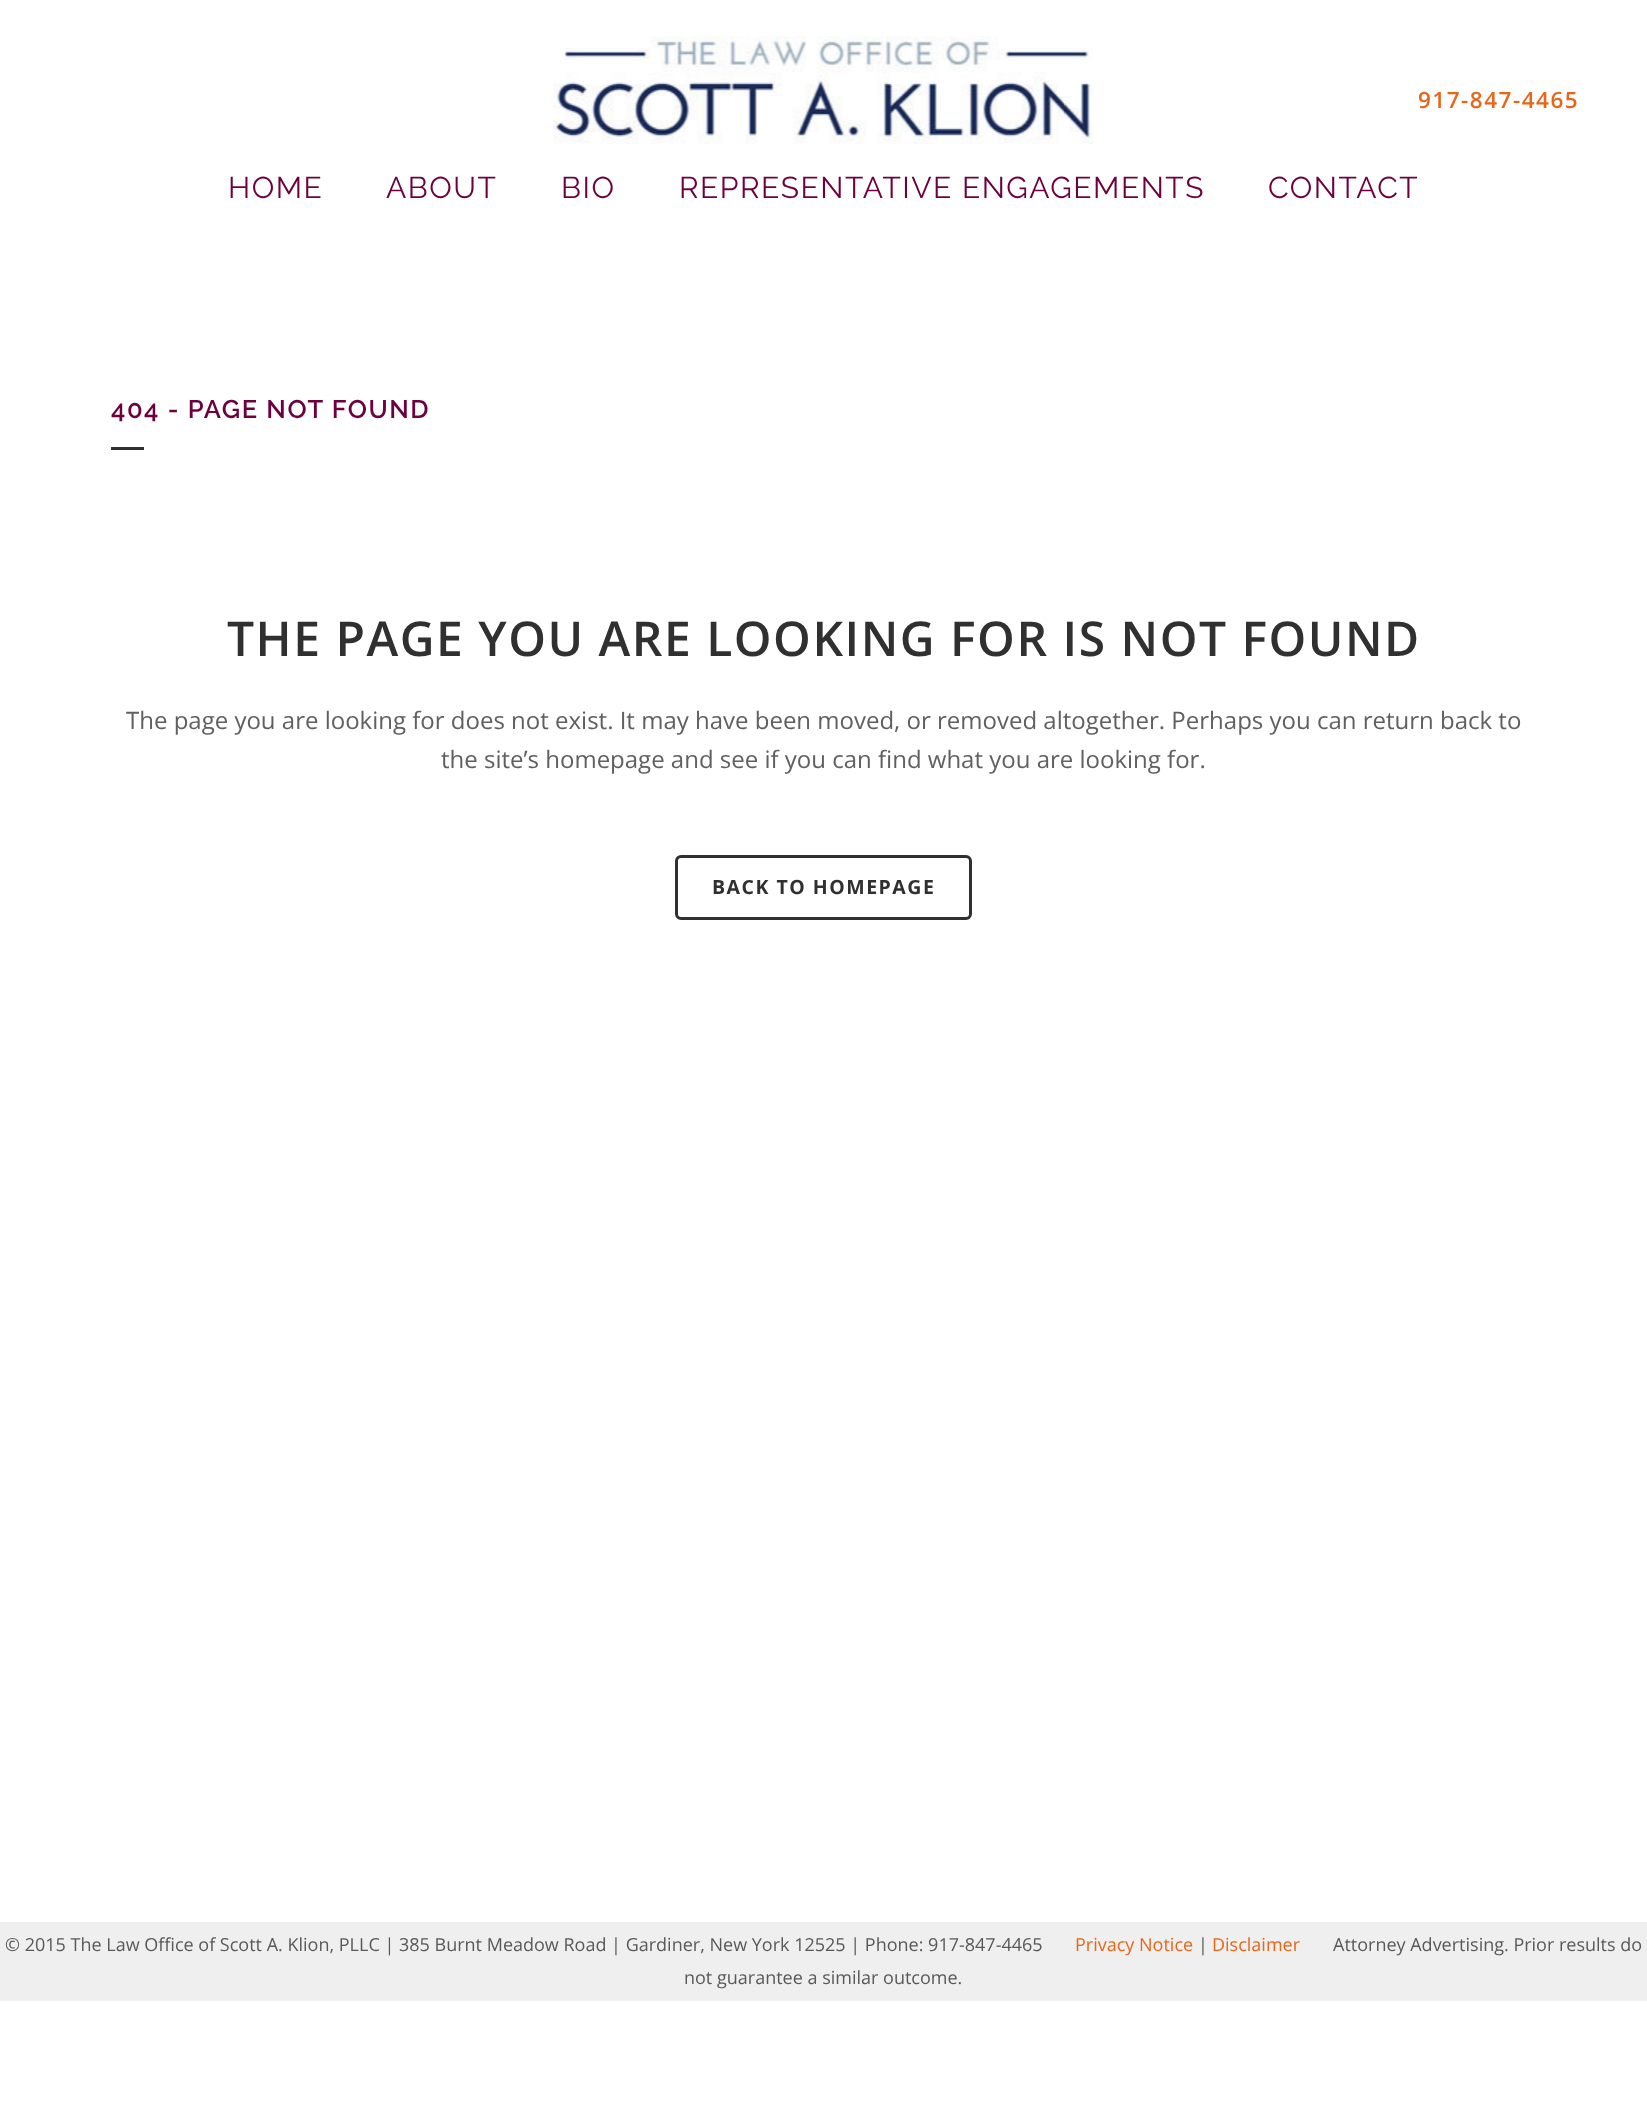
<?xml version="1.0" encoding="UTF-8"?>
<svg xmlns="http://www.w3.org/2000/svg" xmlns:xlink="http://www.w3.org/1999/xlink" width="1647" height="2115">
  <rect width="100%" height="100%" fill="#ffffff" />
  <image x="553" y="36" width="540" height="108" xlink:href="image1.png" />
  <rect x="111" y="447" width="33" height="3" fill="#303030" />
  <rect x="676.5" y="856.5" width="294" height="62" rx="4.5" fill="none" stroke="#303030" stroke-width="3" />
  <rect y="1922" width="1647" height="79" fill="#efefef" />
  <text x="1418" y="108" style="font-family: Open Sans; font-size: 22.5px; font-weight: 600; letter-spacing: 1.5px; fill: #e86618">917-847-4465</text>
  <text x="228" y="198" style="font-family: Raleway; font-size: 30px; letter-spacing: 1.5px; fill: #6d013e">HOME</text>
  <text x="386" y="198" style="font-family: Raleway; font-size: 30px; letter-spacing: 1.5px; fill: #6d013e">ABOUT</text>
  <text x="561" y="198" style="font-family: Raleway; font-size: 30px; letter-spacing: 1.5px; fill: #6d013e">BIO</text>
  <text x="679" y="198" style="font-family: Raleway; font-size: 30px; letter-spacing: 1.5px; fill: #6d013e">REPRESENTATIVE ENGAGEMENTS</text>
  <text x="1268" y="198" style="font-family: Raleway; font-size: 30px; letter-spacing: 1.5px; fill: #6d013e">CONTACT</text>
  <text x="111" y="418" style="font-family: Raleway; font-size: 25.5px; font-weight: 600; letter-spacing: 1.5px; fill: #6d013e">404 - PAGE NOT FOUND</text>
  <text x="227" y="656" style="font-family: Open Sans; font-size: 48px; font-weight: 600; letter-spacing: 1.5px; fill: #303030">THE PAGE YOU ARE LOOKING FOR IS NOT FOUND</text>
  <text x="126" y="729" style="font-family: Open Sans; font-size: 24px; fill: #606060">The page you are looking for does not exist. It may have been moved, or removed altogether. Perhaps you can return back to</text>
  <text x="441" y="768" style="font-family: Open Sans; font-size: 24px; fill: #606060">the site’s homepage and see if you can find what you are looking for.</text>
  <text x="712" y="894" style="font-family: Open Sans; font-size: 19.5px; font-weight: bold; letter-spacing: 1.5px; fill: #303030">BACK TO HOMEPAGE</text>
  <text x="5" y="1951" style="font-family: Open Sans; font-size: 18px; fill: #595959">© 2015 The Law Office of Scott A. Klion, PLLC | 385 Burnt Meadow Road | Gardiner, New York 12525 | Phone: 917-847-4465</text>
  <text x="1075" y="1951" style="font-family: Open Sans; font-size: 18px; fill: #e86618">Privacy Notice</text>
  <text x="1198" y="1951" style="font-family: Open Sans; font-size: 18px; fill: #595959">|</text>
  <text x="1212" y="1951" style="font-family: Open Sans; font-size: 18px; fill: #e86618">Disclaimer</text>
  <text x="1333" y="1951" style="font-family: Open Sans; font-size: 18px; fill: #595959">Attorney Advertising. Prior results do</text>
  <text x="684" y="1984" style="font-family: Open Sans; font-size: 18px; fill: #595959">not guarantee a similar outcome.</text>
</svg>
